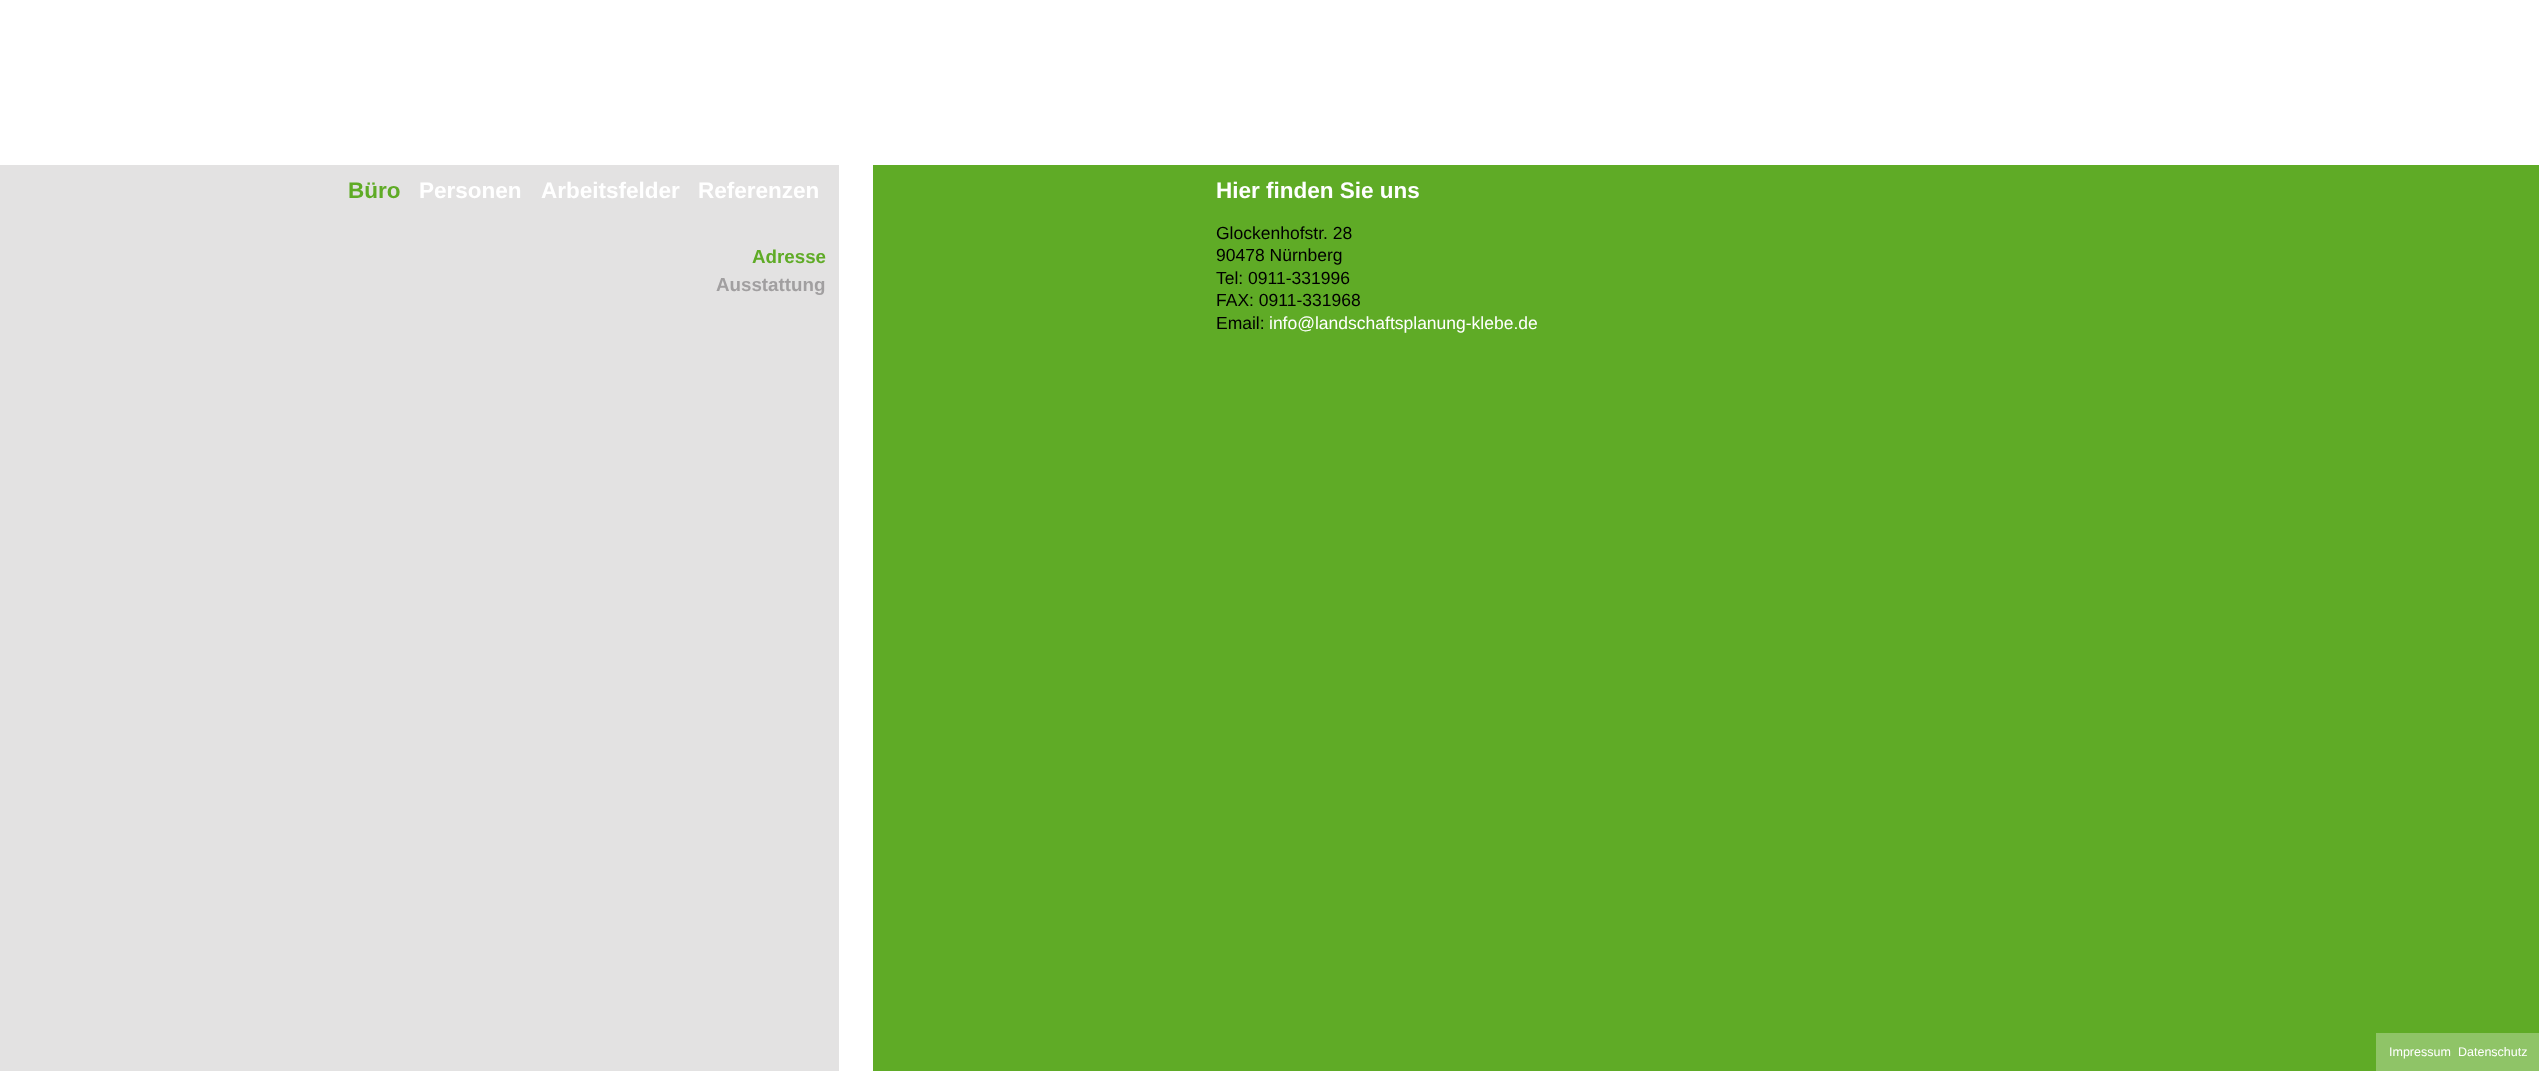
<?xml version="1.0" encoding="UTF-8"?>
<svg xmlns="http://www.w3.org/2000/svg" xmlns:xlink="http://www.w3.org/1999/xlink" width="2539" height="1071">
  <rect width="100%" height="100%" fill="#ffffff" />
  <rect y="165" width="839" height="906" fill="#e3e2e2" />
  <rect x="873" y="165" width="1666" height="906" fill="#5fab26" />
  <rect x="2376" y="1033" width="163" height="38" fill="#8fc467" />
  <text x="348" y="198" style="font-family: Liberation Sans; font-size: 22.5px; font-weight: bold; fill: #5fab26">Büro</text>
  <text x="419" y="198" style="font-family: Liberation Sans; font-size: 22.5px; font-weight: bold; fill: #ffffff">Personen</text>
  <text x="541" y="198" style="font-family: Liberation Sans; font-size: 22.5px; font-weight: bold; fill: #ffffff">Arbeitsfelder</text>
  <text x="698" y="198" style="font-family: Liberation Sans; font-size: 22.5px; font-weight: bold; fill: #ffffff">Referenzen</text>
  <text x="752" y="263" style="font-family: Liberation Sans; font-size: 18.75px; font-weight: bold; fill: #5fab26">Adresse</text>
  <text x="716" y="291" style="font-family: Liberation Sans; font-size: 18.75px; font-weight: bold; fill: #a19fa0">Ausstattung</text>
  <text x="1216" y="198" style="font-family: Liberation Sans; font-size: 22.5px; font-weight: bold; fill: #ffffff">Hier finden Sie uns</text>
  <text x="1216" y="239" style="font-family: Liberation Sans; font-size: 17.5px; fill: #000000">Glockenhofstr. 28</text>
  <text x="1216" y="261" style="font-family: Liberation Sans; font-size: 17.5px; fill: #000000">90478 Nürnberg</text>
  <text x="1216" y="284" style="font-family: Liberation Sans; font-size: 17.5px; fill: #000000">Tel: 0911-331996</text>
  <text x="1216" y="306" style="font-family: Liberation Sans; font-size: 17.5px; fill: #000000">FAX: 0911-331968</text>
  <text x="1216" y="329" style="font-family: Liberation Sans; font-size: 17.5px; fill: #000000">Email:</text>
  <text x="1269" y="329" style="font-family: Liberation Sans; font-size: 17.5px; fill: #ffffff">info@landschaftsplanung-klebe.de</text>
  <text x="2389" y="1056" style="font-family: Liberation Sans; font-size: 12.5px; fill: #ffffff">Impressum</text>
  <text x="2458" y="1056" style="font-family: Liberation Sans; font-size: 12.5px; fill: #ffffff">Datenschutz</text>
</svg>
